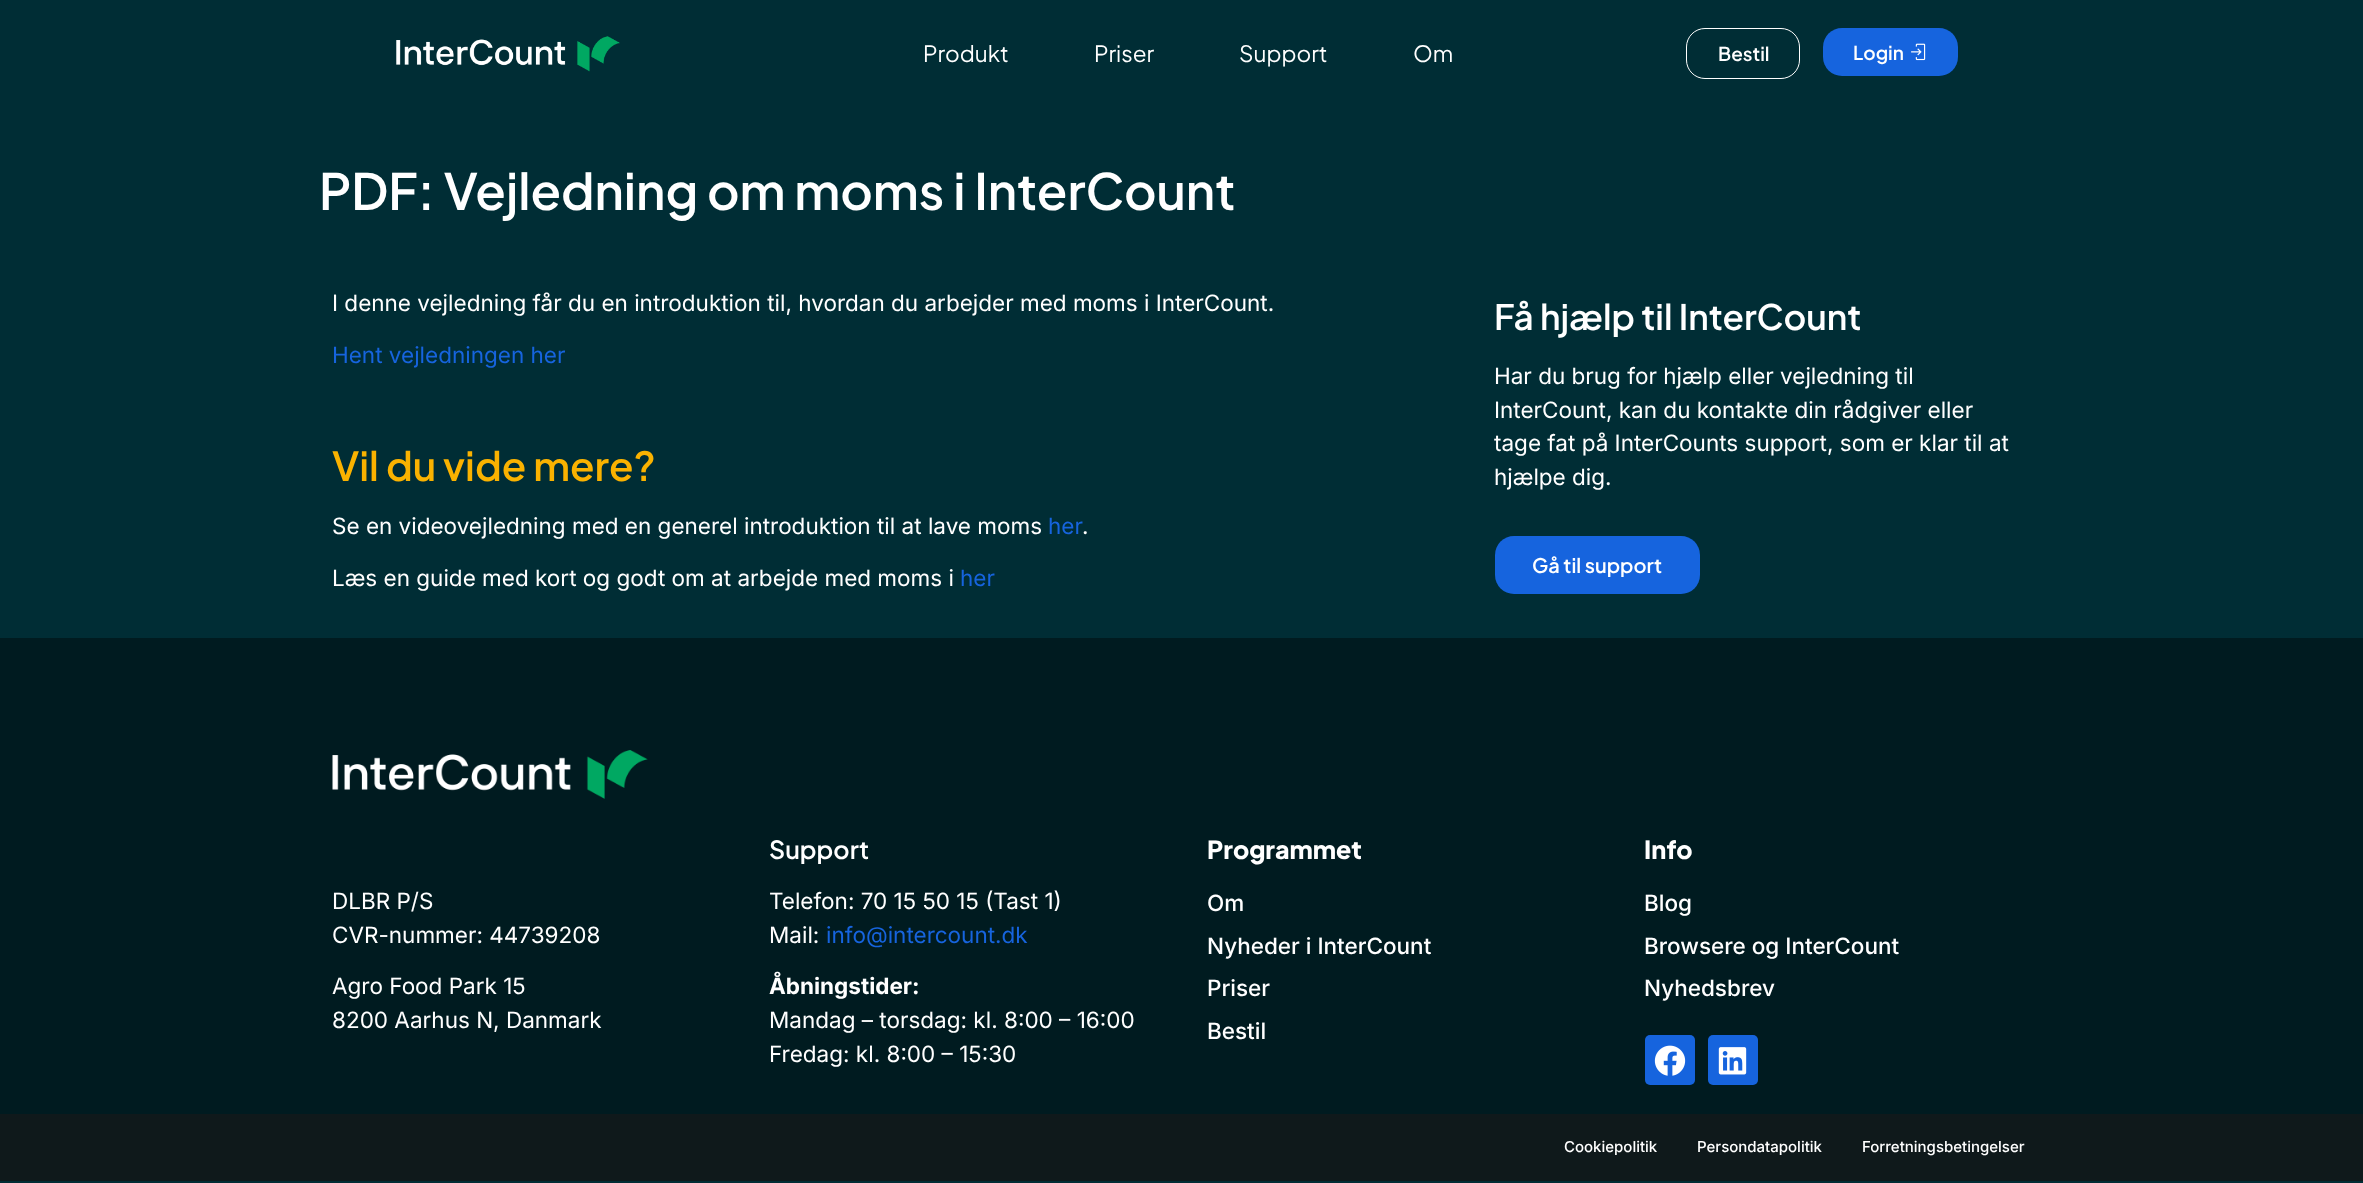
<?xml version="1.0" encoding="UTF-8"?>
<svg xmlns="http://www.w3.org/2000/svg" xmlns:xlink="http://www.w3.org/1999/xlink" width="2363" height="1183">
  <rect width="100%" height="100%" fill="#002d35" />
  <image x="396" y="36" width="224" height="36" xlink:href="image1.png" />
  <rect x="1686.5" y="28.5" width="113" height="50" rx="18.5" fill="none" stroke="#ffffff" />
  <rect x="1823" y="28" width="135" height="48" rx="19" fill="#1664de" />
  <image x="1911" y="43" width="15" height="18" xlink:href="image2.png" />
  <rect x="1495" y="536" width="205" height="58" rx="19" fill="#1664de" />
  <rect y="638" width="2363" height="476" fill="#001b20" />
  <image x="332" y="750" width="316" height="49" xlink:href="image3.png" />
  <rect x="1645" y="1035" width="50" height="50" rx="5" fill="#1664de" />
  <image x="1654" y="1045" width="32" height="31" xlink:href="image4.png" />
  <rect x="1708" y="1035" width="50" height="50" rx="5" fill="#1664de" />
  <image x="1718" y="1047" width="29" height="28" xlink:href="image5.png" />
  <rect y="1114" width="2363" height="67" fill="#0f191b" />
  <text x="923" y="62" style="font-family: Plus Jakarta Sans; font-size: 22.5px; fill: #ffffff">Produkt</text>
  <text x="1094" y="62" style="font-family: Plus Jakarta Sans; font-size: 22.5px; fill: #ffffff">Priser</text>
  <text x="1239" y="62" style="font-family: Plus Jakarta Sans; font-size: 22.5px; fill: #ffffff">Support</text>
  <text x="1413" y="62" style="font-family: Plus Jakarta Sans; font-size: 22.5px; fill: #ffffff">Om</text>
  <text x="1718" y="61" style="font-family: Plus Jakarta Sans; font-size: 19px; font-weight: 600; fill: #ffffff">Bestil</text>
  <text x="1853" y="60" style="font-family: Plus Jakarta Sans; font-size: 19px; font-weight: 600; fill: #ffffff">Login</text>
  <text x="319" y="210" style="font-family: Plus Jakarta Sans; font-size: 50px; font-weight: 600; fill: #ffffff">PDF: Vejledning om moms i InterCount</text>
  <text x="332" y="311" style="font-family: Inter; font-size: 22.5px; fill: #ffffff">I denne vejledning får du en introduktion til, hvordan du arbejder med moms i InterCount.</text>
  <text x="332" y="363" style="font-family: Inter; font-size: 22.5px; fill: #1664de">Hent vejledningen her</text>
  <text x="332" y="481" style="font-family: Plus Jakarta Sans; font-size: 40px; font-weight: 600; fill: #fab200">Vil du vide mere?</text>
  <text x="332" y="534" style="font-family: Inter; font-size: 22.5px; fill: #ffffff">Se en videovejledning med en generel introduktion til at lave moms</text>
  <text x="1048" y="534" style="font-family: Inter; font-size: 22.5px; fill: #1664de">her</text>
  <text x="1082" y="534" style="font-family: Inter; font-size: 22.5px; fill: #ffffff">.</text>
  <text x="332" y="586" style="font-family: Inter; font-size: 22.5px; fill: #ffffff">Læs en guide med kort og godt om at arbejde med moms i</text>
  <text x="960" y="586" style="font-family: Inter; font-size: 22.5px; fill: #1664de">her</text>
  <text x="1494" y="330" style="font-family: Plus Jakarta Sans; font-size: 35px; font-weight: 600; fill: #ffffff">Få hjælp til InterCount</text>
  <text x="1494" y="384" style="font-family: Inter; font-size: 22.5px; fill: #ffffff">Har du brug for hjælp eller vejledning til</text>
  <text x="1494" y="418" style="font-family: Inter; font-size: 22.5px; fill: #ffffff">InterCount, kan du kontakte din rådgiver eller</text>
  <text x="1494" y="451" style="font-family: Inter; font-size: 22.5px; fill: #ffffff">tage fat på InterCounts support, som er klar til at</text>
  <text x="1494" y="485" style="font-family: Inter; font-size: 22.5px; fill: #ffffff">hjælpe dig.</text>
  <text x="1532" y="573" style="font-family: Plus Jakarta Sans; font-size: 20px; font-weight: 600; fill: #ffffff">Gå til support</text>
  <text x="332" y="909" style="font-family: Inter; font-size: 22.5px; fill: #ffffff">DLBR P/S</text>
  <text x="332" y="943" style="font-family: Inter; font-size: 22.5px; fill: #ffffff">CVR-nummer: 44739208</text>
  <text x="332" y="994" style="font-family: Inter; font-size: 22.5px; fill: #ffffff">Agro Food Park 15</text>
  <text x="332" y="1028" style="font-family: Inter; font-size: 22.5px; fill: #ffffff">8200 Aarhus N, Danmark</text>
  <text x="769" y="859" style="font-family: Plus Jakarta Sans; font-size: 25px; font-weight: 600; fill: #ffffff">Support</text>
  <text x="769" y="909" style="font-family: Inter; font-size: 22.5px; fill: #ffffff">Telefon: 70 15 50 15 (Tast 1)</text>
  <text x="769" y="943" style="font-family: Inter; font-size: 22.5px; fill: #ffffff">Mail:</text>
  <text x="826" y="943" style="font-family: Inter; font-size: 22.5px; fill: #1664de">info@intercount.dk</text>
  <text x="769" y="994" style="font-family: Inter; font-size: 22.5px; font-weight: bold; fill: #ffffff">Åbningstider:</text>
  <text x="769" y="1028" style="font-family: Inter; font-size: 22.5px; fill: #ffffff">Mandag – torsdag: kl. 8:00 – 16:00</text>
  <text x="769" y="1062" style="font-family: Inter; font-size: 22.5px; fill: #ffffff">Fredag: kl. 8:00 – 15:30</text>
  <text x="1207" y="859" style="font-family: Plus Jakarta Sans; font-size: 25px; font-weight: 800; fill: #ffffff">Programmet</text>
  <text x="1207" y="911" style="font-family: Inter; font-size: 22.5px; font-weight: 500; fill: #ffffff">Om</text>
  <text x="1207" y="954" style="font-family: Inter; font-size: 22.5px; font-weight: 500; fill: #ffffff">Nyheder i InterCount</text>
  <text x="1207" y="996" style="font-family: Inter; font-size: 22.5px; font-weight: 500; fill: #ffffff">Priser</text>
  <text x="1207" y="1039" style="font-family: Inter; font-size: 22.5px; font-weight: 500; fill: #ffffff">Bestil</text>
  <text x="1644" y="859" style="font-family: Plus Jakarta Sans; font-size: 25px; font-weight: 800; fill: #ffffff">Info</text>
  <text x="1644" y="911" style="font-family: Inter; font-size: 22.5px; font-weight: 500; fill: #ffffff">Blog</text>
  <text x="1644" y="954" style="font-family: Inter; font-size: 22.5px; font-weight: 500; fill: #ffffff">Browsere og InterCount</text>
  <text x="1644" y="996" style="font-family: Inter; font-size: 22.5px; font-weight: 500; fill: #ffffff">Nyhedsbrev</text>
  <text x="1564" y="1152" style="font-family: Inter; font-size: 15px; font-weight: 500; fill: #ffffff">Cookiepolitik</text>
  <text x="1697" y="1152" style="font-family: Inter; font-size: 15px; font-weight: 500; fill: #ffffff">Persondatapolitik</text>
  <text x="1862" y="1152" style="font-family: Inter; font-size: 15px; font-weight: 500; fill: #ffffff">Forretningsbetingelser</text>
</svg>
